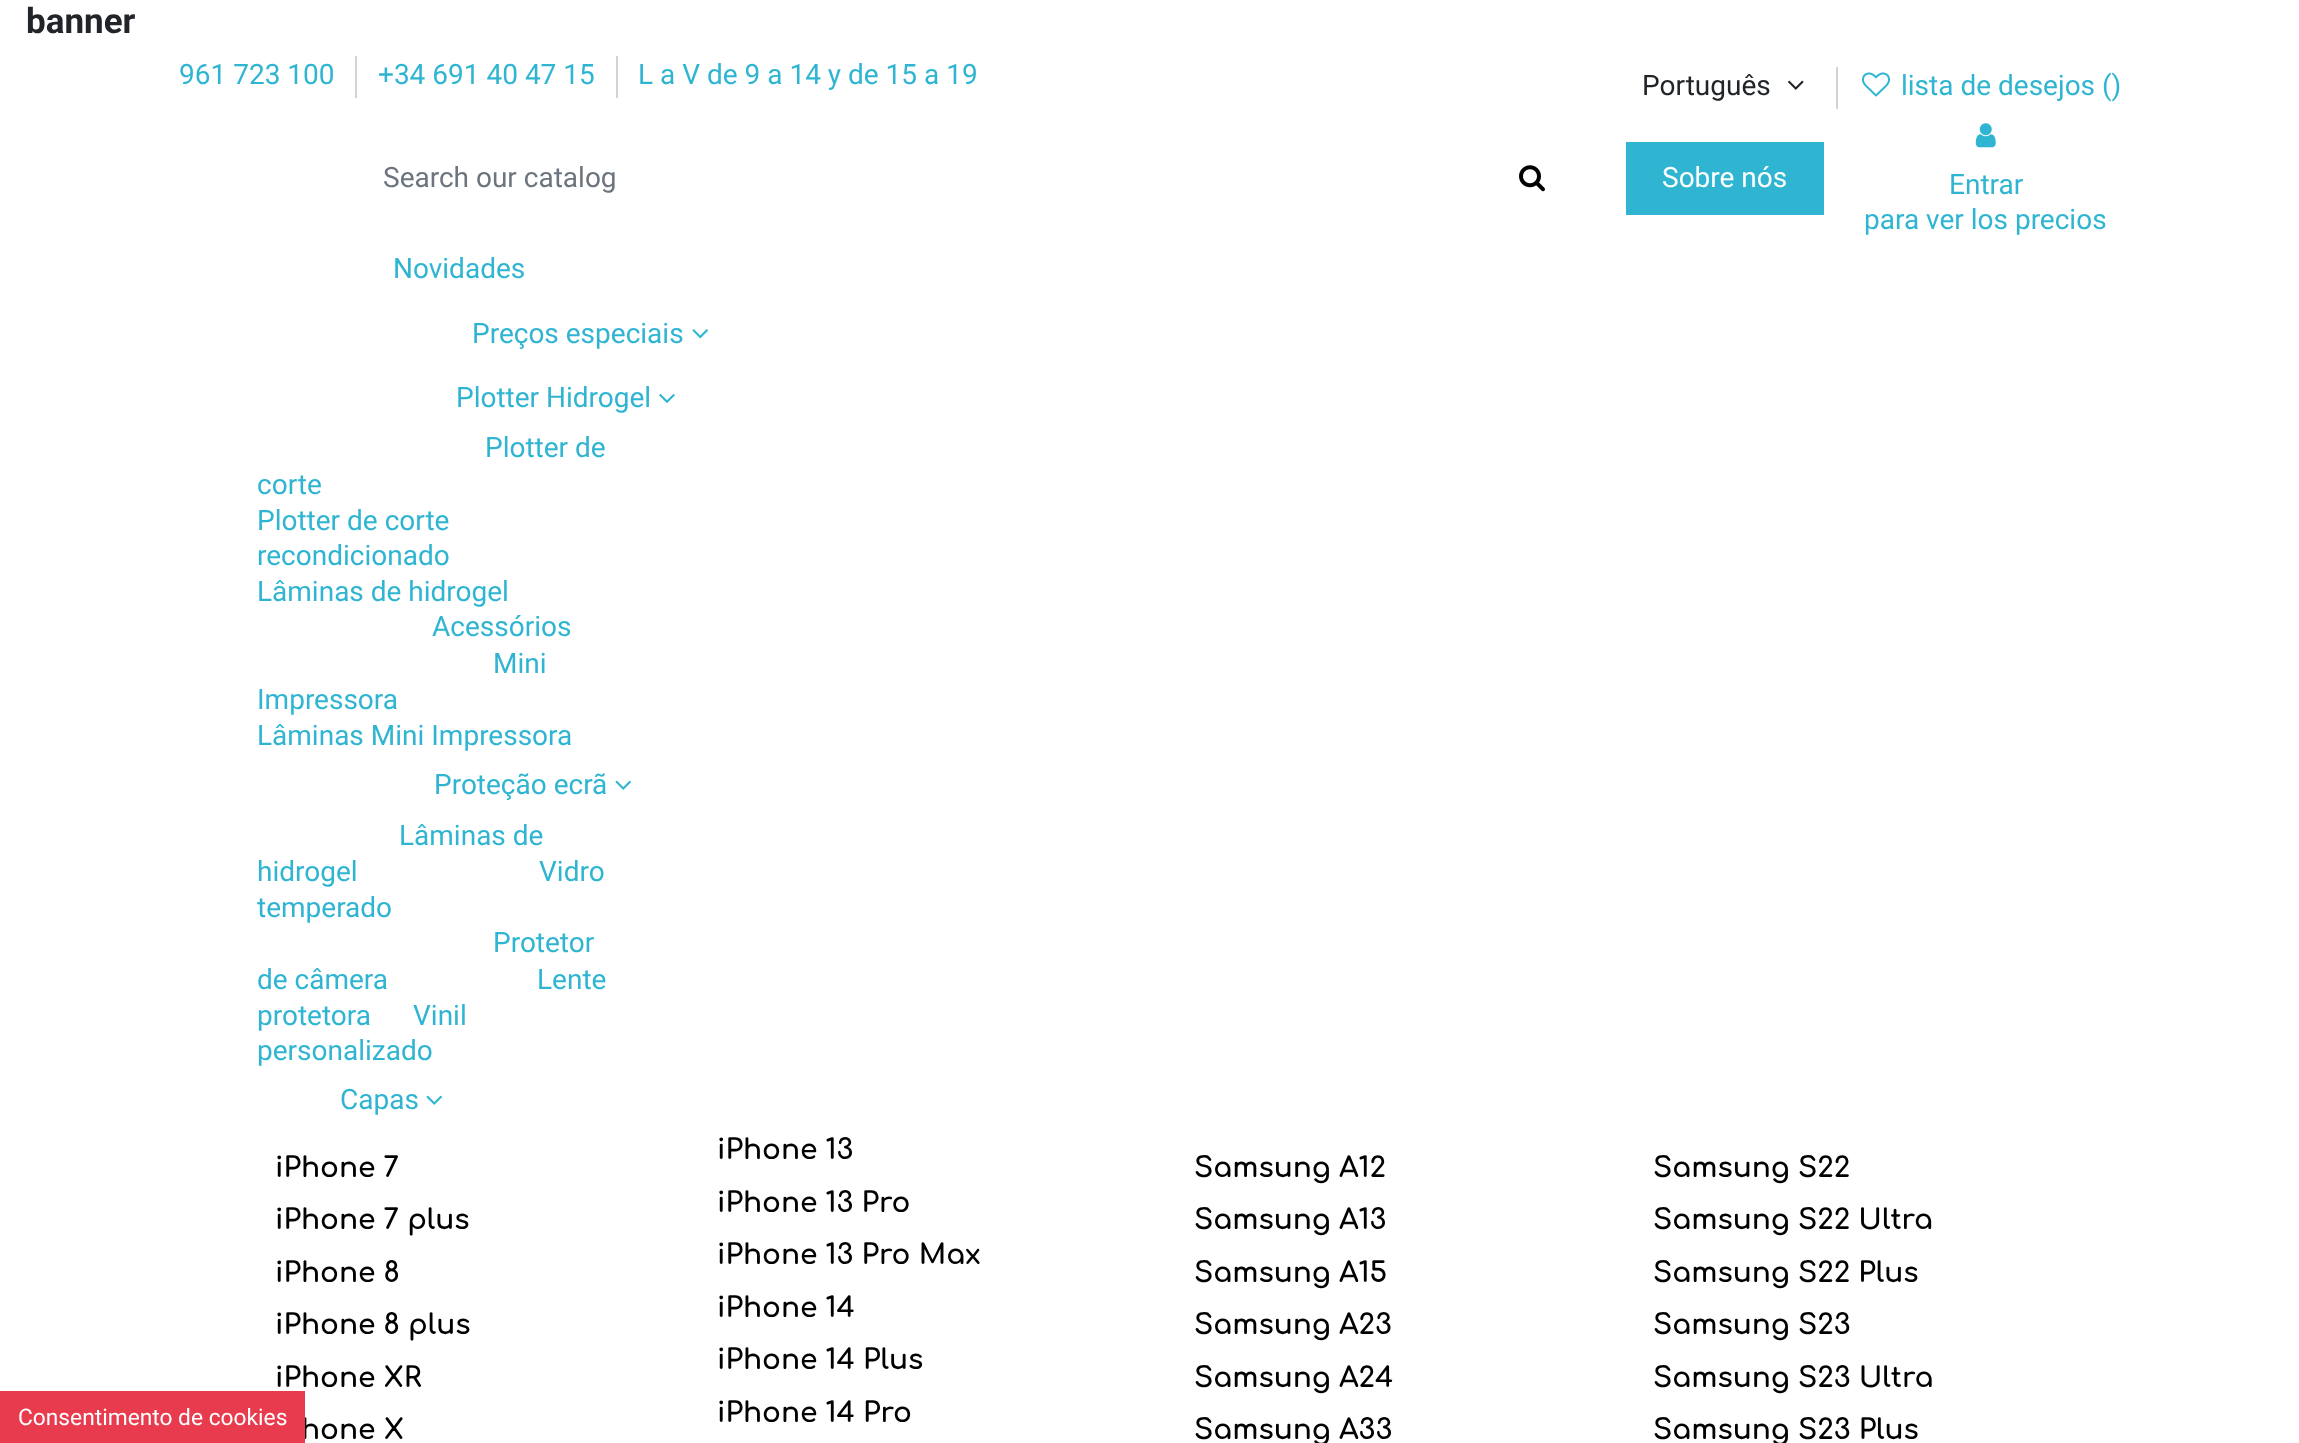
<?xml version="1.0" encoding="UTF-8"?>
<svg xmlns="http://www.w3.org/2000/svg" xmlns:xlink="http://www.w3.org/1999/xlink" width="2299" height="1443">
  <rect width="100%" height="100%" fill="#ffffff" />
  <rect x="355" y="56" width="2" height="42" fill="#d3d3d4" />
  <rect x="616" y="56" width="2" height="42" fill="#d3d3d4" />
  <image x="1788" y="80" width="16" height="10" xlink:href="image1.png" />
  <rect x="1836" y="67" width="2" height="42" fill="#d3d3d4" />
  <image x="1862" y="72" width="28" height="25" xlink:href="image2.png" />
  <image x="1519" y="165" width="26" height="27" xlink:href="image3.png" />
  <rect x="1626" y="142" width="198" height="73" fill="#2fb5d2" />
  <image x="1975" y="123" width="21" height="25" xlink:href="image4.png" />
  <image x="692" y="329" width="16" height="10" xlink:href="image5.png" />
  <image x="659" y="394" width="16" height="9" xlink:href="image6.png" />
  <image x="615" y="780" width="16" height="10" xlink:href="image7.png" />
  <image x="426" y="1095" width="16" height="10" xlink:href="image7.png" />
  <text x="26" y="33" style="font-family: Roboto; font-size: 35px; font-weight: bold; fill: #212529">banner</text>
  <text x="179" y="84" style="font-family: Roboto; font-size: 28px; fill: #2fb5d2">961 723 100</text>
  <text x="378" y="84" style="font-family: Roboto; font-size: 28px; fill: #2fb5d2">+34 691 40 47 15</text>
  <text x="638" y="84" style="font-family: Roboto; font-size: 28px; fill: #2fb5d2">L a V de 9 a 14 y de 15 a 19</text>
  <text x="1642" y="95" style="font-family: Roboto; font-size: 28px; fill: #212529">Português</text>
  <text x="1901" y="95" style="font-family: Roboto; font-size: 28px; fill: #2fb5d2">lista de desejos ()</text>
  <text x="383" y="187" style="font-family: Roboto; font-size: 28px; fill: #6c757d">Search our catalog</text>
  <text x="1662" y="187" style="font-family: Roboto; font-size: 28px; fill: #ffffff">Sobre nós</text>
  <text x="1949" y="194" style="font-family: Roboto; font-size: 28px; fill: #2fb5d2">Entrar</text>
  <text x="1864" y="229" style="font-family: Roboto; font-size: 28px; fill: #2fb5d2">para ver los precios</text>
  <text x="393" y="278" style="font-family: Roboto; font-size: 28px; fill: #2fb5d2">Novidades</text>
  <text x="472" y="343" style="font-family: Roboto; font-size: 28px; fill: #2fb5d2">Preços especiais</text>
  <text x="456" y="407" style="font-family: Roboto; font-size: 28px; fill: #2fb5d2">Plotter Hidrogel</text>
  <text x="485" y="457" style="font-family: Roboto; font-size: 28px; fill: #2fb5d2">Plotter de</text>
  <text x="257" y="494" style="font-family: Roboto; font-size: 28px; fill: #2fb5d2">corte</text>
  <text x="257" y="530" style="font-family: Roboto; font-size: 28px; fill: #2fb5d2">Plotter de corte</text>
  <text x="257" y="565" style="font-family: Roboto; font-size: 28px; fill: #2fb5d2">recondicionado</text>
  <text x="257" y="601" style="font-family: Roboto; font-size: 28px; fill: #2fb5d2">Lâminas de hidrogel</text>
  <text x="432" y="636" style="font-family: Roboto; font-size: 28px; fill: #2fb5d2">Acessórios</text>
  <text x="493" y="673" style="font-family: Roboto; font-size: 28px; fill: #2fb5d2">Mini</text>
  <text x="257" y="709" style="font-family: Roboto; font-size: 28px; fill: #2fb5d2">Impressora</text>
  <text x="257" y="745" style="font-family: Roboto; font-size: 28px; fill: #2fb5d2">Lâminas Mini Impressora</text>
  <text x="434" y="794" style="font-family: Roboto; font-size: 28px; fill: #2fb5d2">Proteção ecrã</text>
  <text x="399" y="845" style="font-family: Roboto; font-size: 28px; fill: #2fb5d2">Lâminas de</text>
  <text x="257" y="881" style="font-family: Roboto; font-size: 28px; fill: #2fb5d2">hidrogel</text>
  <text x="539" y="881" style="font-family: Roboto; font-size: 28px; fill: #2fb5d2">Vidro</text>
  <text x="257" y="917" style="font-family: Roboto; font-size: 28px; fill: #2fb5d2">temperado</text>
  <text x="493" y="952" style="font-family: Roboto; font-size: 28px; fill: #2fb5d2">Protetor</text>
  <text x="257" y="989" style="font-family: Roboto; font-size: 28px; fill: #2fb5d2">de câmera</text>
  <text x="537" y="989" style="font-family: Roboto; font-size: 28px; fill: #2fb5d2">Lente</text>
  <text x="257" y="1025" style="font-family: Roboto; font-size: 28px; fill: #2fb5d2">protetora</text>
  <text x="413" y="1025" style="font-family: Roboto; font-size: 28px; fill: #2fb5d2">Vinil</text>
  <text x="257" y="1060" style="font-family: Roboto; font-size: 28px; fill: #2fb5d2">personalizado</text>
  <text x="340" y="1109" style="font-family: Roboto; font-size: 28px; fill: #2fb5d2">Capas</text>
  <text x="275" y="1177" style="font-family: Comfortaa; font-size: 28px; font-weight: bold; fill: #000000">iPhone 7</text>
  <text x="275" y="1229" style="font-family: Comfortaa; font-size: 28px; font-weight: bold; fill: #000000">iPhone 7 plus</text>
  <text x="275" y="1282" style="font-family: Comfortaa; font-size: 28px; font-weight: bold; fill: #000000">iPhone 8</text>
  <text x="275" y="1334" style="font-family: Comfortaa; font-size: 28px; font-weight: bold; fill: #000000">iPhone 8 plus</text>
  <text x="275" y="1387" style="font-family: Comfortaa; font-size: 28px; font-weight: bold; fill: #000000">iPhone XR</text>
  <text x="301" y="1439" style="font-family: Comfortaa; font-size: 28px; font-weight: bold; fill: #000000">hone X</text>
  <text x="717" y="1159" style="font-family: Comfortaa; font-size: 28px; font-weight: bold; fill: #000000">iPhone 13</text>
  <text x="717" y="1212" style="font-family: Comfortaa; font-size: 28px; font-weight: bold; fill: #000000">iPhone 13 Pro</text>
  <text x="717" y="1264" style="font-family: Comfortaa; font-size: 28px; font-weight: bold; fill: #000000">iPhone 13 Pro Max</text>
  <text x="717" y="1317" style="font-family: Comfortaa; font-size: 28px; font-weight: bold; fill: #000000">iPhone 14</text>
  <text x="717" y="1369" style="font-family: Comfortaa; font-size: 28px; font-weight: bold; fill: #000000">iPhone 14 Plus</text>
  <text x="717" y="1422" style="font-family: Comfortaa; font-size: 28px; font-weight: bold; fill: #000000">iPhone 14 Pro</text>
  <text x="1194" y="1177" style="font-family: Comfortaa; font-size: 28px; font-weight: bold; fill: #000000">Samsung A12</text>
  <text x="1194" y="1229" style="font-family: Comfortaa; font-size: 28px; font-weight: bold; fill: #000000">Samsung A13</text>
  <text x="1194" y="1282" style="font-family: Comfortaa; font-size: 28px; font-weight: bold; fill: #000000">Samsung A15</text>
  <text x="1194" y="1334" style="font-family: Comfortaa; font-size: 28px; font-weight: bold; fill: #000000">Samsung A23</text>
  <text x="1194" y="1387" style="font-family: Comfortaa; font-size: 28px; font-weight: bold; fill: #000000">Samsung A24</text>
  <text x="1194" y="1439" style="font-family: Comfortaa; font-size: 28px; font-weight: bold; fill: #000000">Samsung A33</text>
  <text x="1653" y="1177" style="font-family: Comfortaa; font-size: 28px; font-weight: bold; fill: #000000">Samsung S22</text>
  <text x="1653" y="1229" style="font-family: Comfortaa; font-size: 28px; font-weight: bold; fill: #000000">Samsung S22 Ultra</text>
  <text x="1653" y="1282" style="font-family: Comfortaa; font-size: 28px; font-weight: bold; fill: #000000">Samsung S22 Plus</text>
  <text x="1653" y="1334" style="font-family: Comfortaa; font-size: 28px; font-weight: bold; fill: #000000">Samsung S23</text>
  <text x="1653" y="1387" style="font-family: Comfortaa; font-size: 28px; font-weight: bold; fill: #000000">Samsung S23 Ultra</text>
  <text x="1653" y="1439" style="font-family: Comfortaa; font-size: 28px; font-weight: bold; fill: #000000">Samsung S23 Plus</text>
  <rect y="1391" width="305" height="52" fill="#e83c4e" />
  <text x="18" y="1425" style="font-family: Roboto; font-size: 22.75px; fill: #ffffff">Consentimento de cookies</text>
</svg>
